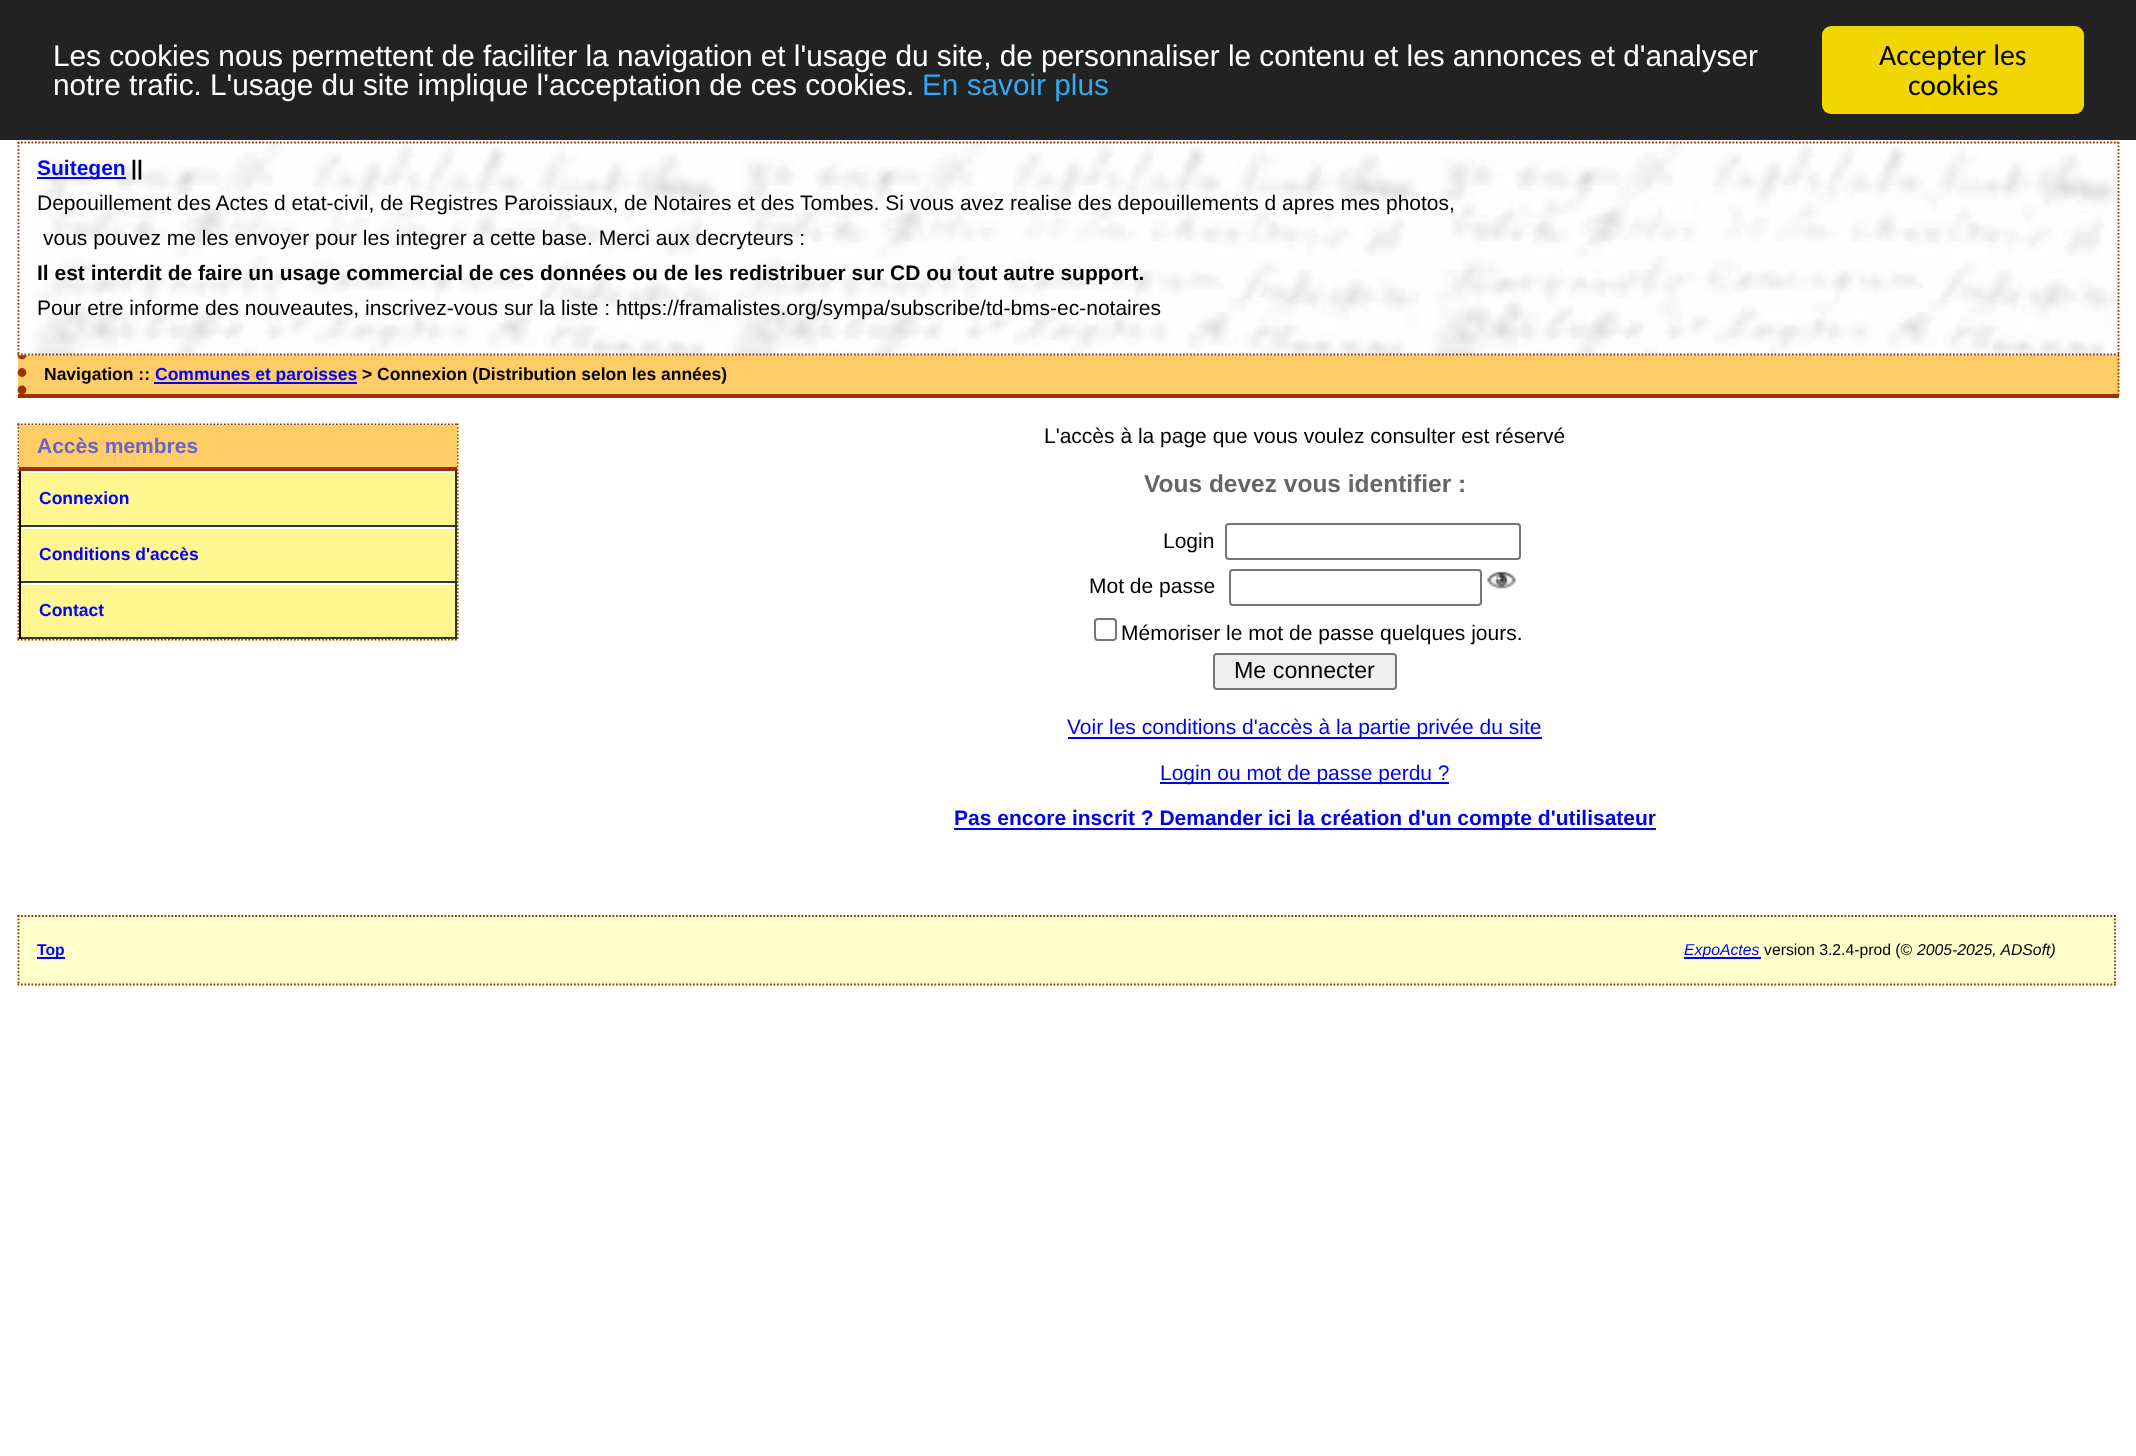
<?xml version="1.0" encoding="UTF-8"?>
<svg xmlns="http://www.w3.org/2000/svg" xmlns:xlink="http://www.w3.org/1999/xlink" width="2136" height="1456">
  <rect width="100%" height="100%" fill="#ffffff" />
  <rect width="2136" height="140" fill="#222222" />
  <rect x="1822" y="26" width="262" height="88" rx="9" fill="#f1d600" />
  <rect x="18" y="355" width="2101" height="39" fill="#ffcc66" />
  <path d="M 2118.5 355 v 42" fill="none" stroke="#993300" stroke-width="1.8" stroke-dasharray="1.75 1.75" />
  <rect x="18" y="394" width="2101" height="4" fill="#993300" />
  <path d="M 22 355 v 42" fill="none" stroke="#993300" stroke-width="8.8" stroke-linecap="round" stroke-dasharray="0 17.5" />
  <image x="17" y="142" width="2103" height="214" xlink:href="image1.png" />
  <path d="M 17.5 142.5 h 2101.5" fill="none" stroke="#993300" stroke-width="1.8" stroke-dasharray="1.75 1.75" />
  <path d="M 2118.5 142 v 213" fill="none" stroke="#993300" stroke-width="1.8" stroke-dasharray="1.75 1.75" />
  <path d="M 17.5 354.5 h 2101.5" fill="none" stroke="#993300" stroke-width="1.8" stroke-dasharray="1.75 1.75" />
  <path d="M 18.5 142 v 213" fill="none" stroke="#993300" stroke-width="1.8" stroke-dasharray="1.75 1.75" />
  <rect x="37" y="177" width="89" height="2" fill="#0000ff" />
  <rect x="154" y="382" width="203" height="2" fill="#0000ff" />
  <rect x="18" y="424" width="441" height="217" fill="#ffffcc" />
  <path d="M 17.5 424.5 h 441" fill="none" stroke="#993300" stroke-width="1.8" stroke-dasharray="1.75 1.75" />
  <path d="M 457.5 423.5 v 217" fill="none" stroke="#993300" stroke-width="1.8" stroke-dasharray="1.75 1.75" />
  <path d="M 17.5 639.5 h 441" fill="none" stroke="#993300" stroke-width="1.8" stroke-dasharray="1.75 1.75" />
  <path d="M 18.5 423.5 v 217" fill="none" stroke="#993300" stroke-width="1.8" stroke-dasharray="1.75 1.75" />
  <rect x="19" y="425" width="438" height="42" fill="#ffcc66" />
  <rect x="19" y="467" width="438" height="4" fill="#993300" />
  <rect x="21" y="473" width="434" height="52" fill="#fff68f" />
  <rect x="19" y="471" width="438" height="2" fill="#ffffff" />
  <rect x="455" y="471" width="2" height="56" fill="#333333" />
  <rect x="19" y="525" width="438" height="2" fill="#333333" />
  <rect x="19" y="471" width="2" height="56" fill="#000000" />
  <rect x="21" y="529" width="434" height="52" fill="#fff68f" />
  <rect x="19" y="527" width="438" height="2" fill="#ffffff" />
  <rect x="455" y="527" width="2" height="56" fill="#333333" />
  <rect x="19" y="581" width="438" height="2" fill="#333333" />
  <rect x="19" y="527" width="2" height="56" fill="#000000" />
  <rect x="21" y="585" width="434" height="52" fill="#fff68f" />
  <rect x="19" y="583" width="438" height="2" fill="#ffffff" />
  <rect x="455" y="583" width="2" height="56" fill="#333333" />
  <rect x="19" y="637" width="438" height="2" fill="#333333" />
  <rect x="19" y="583" width="2" height="56" fill="#000000" />
  <rect x="1226" y="524" width="294" height="35" rx="3" fill="none" stroke="#767676" stroke-width="2" />
  <rect x="1230" y="570" width="251" height="35" rx="3" fill="none" stroke="#767676" stroke-width="2" />
  <image x="1487" y="571" width="29" height="18" xlink:href="image2.png" />
  <rect x="1095" y="619" width="21" height="21" rx="3" fill="none" stroke="#767676" stroke-width="2" />
  <rect x="1214" y="654" width="182" height="35" rx="3" fill="#efefef" stroke="#767676" stroke-width="2" />
  <rect x="1068" y="737" width="474" height="2" fill="#0000ee" />
  <rect x="1160" y="782" width="289" height="2" fill="#0000ee" />
  <rect x="954" y="828" width="702" height="2" fill="#0000ee" />
  <rect x="18" y="915" width="2098" height="70" fill="#ffffcc" />
  <path d="M 17.5 916 h 2098.5" fill="none" stroke="#993300" stroke-width="1.8" stroke-dasharray="1.75 1.75" />
  <path d="M 2115 915 v 70" fill="none" stroke="#993300" stroke-width="1.8" stroke-dasharray="1.75 1.75" />
  <path d="M 17.5 984.5 h 2098.5" fill="none" stroke="#993300" stroke-width="1.8" stroke-dasharray="1.75 1.75" />
  <path d="M 18.5 915 v 70" fill="none" stroke="#993300" stroke-width="1.8" stroke-dasharray="1.75 1.75" />
  <rect x="37" y="957" width="28" height="2" fill="#0000ff" />
  <rect x="1684" y="957" width="77" height="2" fill="#0000ff" />
  <text x="53" y="66" style="font-family: Liberation Sans; font-size: 29.75px; fill: #ffffff">Les cookies nous permettent de faciliter la navigation et l'usage du site, de personnaliser le contenu et les annonces et d'analyser</text>
  <text x="53" y="95" style="font-family: Liberation Sans; font-size: 29.75px; fill: #ffffff">notre trafic. L'usage du site implique l'acceptation de ces cookies.</text>
  <text x="922" y="95" style="font-family: Liberation Sans; font-size: 29.75px; fill: #31a8f0">En savoir plus</text>
  <text x="1879" y="65" style="font-family: Carlito; font-size: 29.75px; fill: #000000">Accepter les</text>
  <text x="1908" y="95" style="font-family: Carlito; font-size: 29.75px; fill: #000000">cookies</text>
  <text x="37" y="175" style="font-family: Liberation Sans; font-size: 21px; font-weight: bold; fill: #0000ff">Suitegen</text>
  <text x="131" y="175" style="font-family: Liberation Sans; font-size: 21px; font-weight: bold; fill: #000000">||</text>
  <text x="37" y="210" style="font-family: Liberation Sans; font-size: 21px; fill: #000000">Depouillement des Actes d etat-civil, de Registres Paroissiaux, de Notaires et des Tombes. Si vous avez realise des depouillements d apres mes photos,</text>
  <text x="43" y="245" style="font-family: Liberation Sans; font-size: 21px; fill: #000000">vous pouvez me les envoyer pour les integrer a cette base. Merci aux decryteurs :</text>
  <text x="37" y="280" style="font-family: Liberation Sans; font-size: 21px; font-weight: bold; fill: #000000">Il est interdit de faire un usage commercial de ces données ou de les redistribuer sur CD ou tout autre support.</text>
  <text x="37" y="315" style="font-family: Liberation Sans; font-size: 21px; fill: #000000">Pour etre informe des nouveautes, inscrivez-vous sur la liste : https://framalistes.org/sympa/subscribe/td-bms-ec-notaires</text>
  <text x="44" y="380" style="font-family: Liberation Sans; font-size: 17.5px; font-weight: bold; fill: #000000">Navigation ::</text>
  <text x="155" y="380" style="font-family: Liberation Sans; font-size: 17.5px; font-weight: bold; fill: #0000ff">Communes et paroisses</text>
  <text x="362" y="380" style="font-family: Liberation Sans; font-size: 17.5px; font-weight: bold; fill: #000000">&gt; Connexion (Distribution selon les années)</text>
  <text x="37" y="453" style="font-family: Liberation Sans; font-size: 21px; font-weight: bold; fill: #6666cc">Accès membres</text>
  <text x="39" y="504" style="font-family: Liberation Sans; font-size: 17.5px; font-weight: bold; fill: #0000ff">Connexion</text>
  <text x="39" y="560" style="font-family: Liberation Sans; font-size: 17.5px; font-weight: bold; fill: #0000ff">Conditions d'accès</text>
  <text x="39" y="616" style="font-family: Liberation Sans; font-size: 17.5px; font-weight: bold; fill: #0000ff">Contact</text>
  <text x="1044" y="443" style="font-family: Liberation Sans; font-size: 21px; fill: #000000">L'accès à la page que vous voulez consulter est réservé</text>
  <text x="1144" y="492" style="font-family: Liberation Sans; font-size: 24.5px; font-weight: bold; fill: #666666">Vous devez vous identifier :</text>
  <text x="1163" y="548" style="font-family: Liberation Sans; font-size: 21px; fill: #000000">Login</text>
  <text x="1089" y="593" style="font-family: Liberation Sans; font-size: 21px; fill: #000000">Mot de passe</text>
  <text x="1121" y="640" style="font-family: Liberation Sans; font-size: 21px; fill: #000000">Mémoriser le mot de passe quelques jours.</text>
  <text x="1234" y="678" style="font-family: Liberation Sans; font-size: 23.25px; fill: #000000">Me connecter</text>
  <text x="1067" y="734" style="font-family: Liberation Sans; font-size: 21px; fill: #0000ee">Voir les conditions d'accès à la partie privée du site</text>
  <text x="1160" y="780" style="font-family: Liberation Sans; font-size: 21px; fill: #0000ee">Login ou mot de passe perdu ?</text>
  <text x="954" y="825" style="font-family: Liberation Sans; font-size: 21px; font-weight: bold; fill: #0000ee">Pas encore inscrit ? Demander ici la création d'un compte d'utilisateur</text>
  <text x="37" y="955" style="font-family: Liberation Sans; font-size: 15.75px; font-weight: bold; fill: #0000ff">Top</text>
  <text x="1684" y="955" style="font-family: Liberation Sans; font-size: 15.75px; font-style: italic; fill: #0000ff">ExpoActes</text>
  <text x="1764" y="955" style="font-family: Liberation Sans; font-size: 15.75px; fill: #000000">version 3.2.4-prod (©</text>
  <text x="1917" y="955" style="font-family: Liberation Sans; font-size: 15.75px; font-style: italic; fill: #000000">2005-2025, ADSoft)</text>
</svg>
